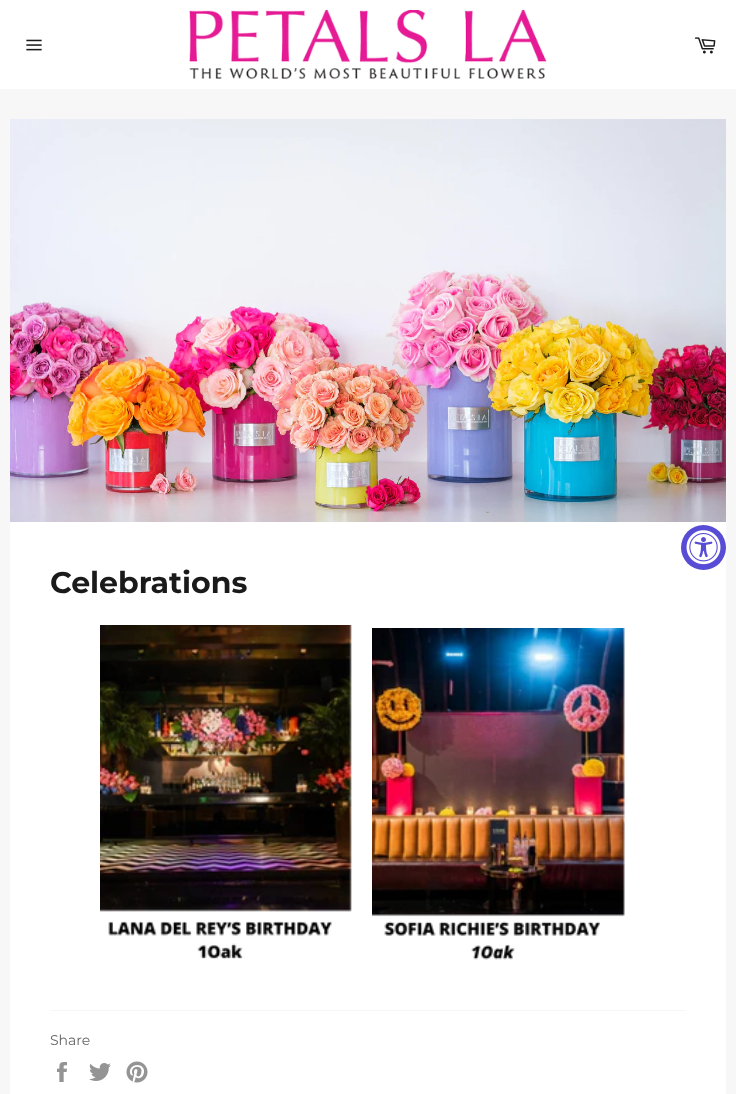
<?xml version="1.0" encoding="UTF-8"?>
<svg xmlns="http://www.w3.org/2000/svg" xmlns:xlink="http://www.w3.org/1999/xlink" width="736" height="1094">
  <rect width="100%" height="100%" fill="#f7f7f7" />
  <rect width="736" height="89" fill="#ffffff" />
  <image x="26" y="39" width="16" height="12" xlink:href="image1.png" />
  <image x="189" y="10" width="358" height="69" xlink:href="image2.png" />
  <image x="694" y="37" width="22" height="17" xlink:href="image3.png" />
  <rect x="10" y="522" width="716" height="572" fill="#ffffff" />
  <circle cx="703.5" cy="547.5" r="22.5" fill="#574cd5" />
  <image x="686" y="530" width="35" height="35" xlink:href="image4.png" />
  <image x="10" y="119" width="716" height="403" xlink:href="image5.png" />
  <image x="100" y="625" width="252" height="334" xlink:href="image6.png" />
  <image x="372" y="628" width="253" height="332" xlink:href="image7.png" />
  <rect x="50" y="1010" width="636" height="1" fill="#f7f7f7" />
  <image x="57" y="1062" width="10" height="20" xlink:href="image8.png" />
  <image x="89" y="1063" width="22" height="18" xlink:href="image9.png" />
  <image x="126" y="1061" width="22" height="22" xlink:href="image10.png" />
  <text x="50" y="593" style="font-family: Montserrat; font-size: 30px; font-weight: bold; fill: #1a1a1a">Celebrations</text>
  <text x="50" y="1045" style="font-family: Montserrat; font-size: 14px; fill: #666666">Share</text>
</svg>
